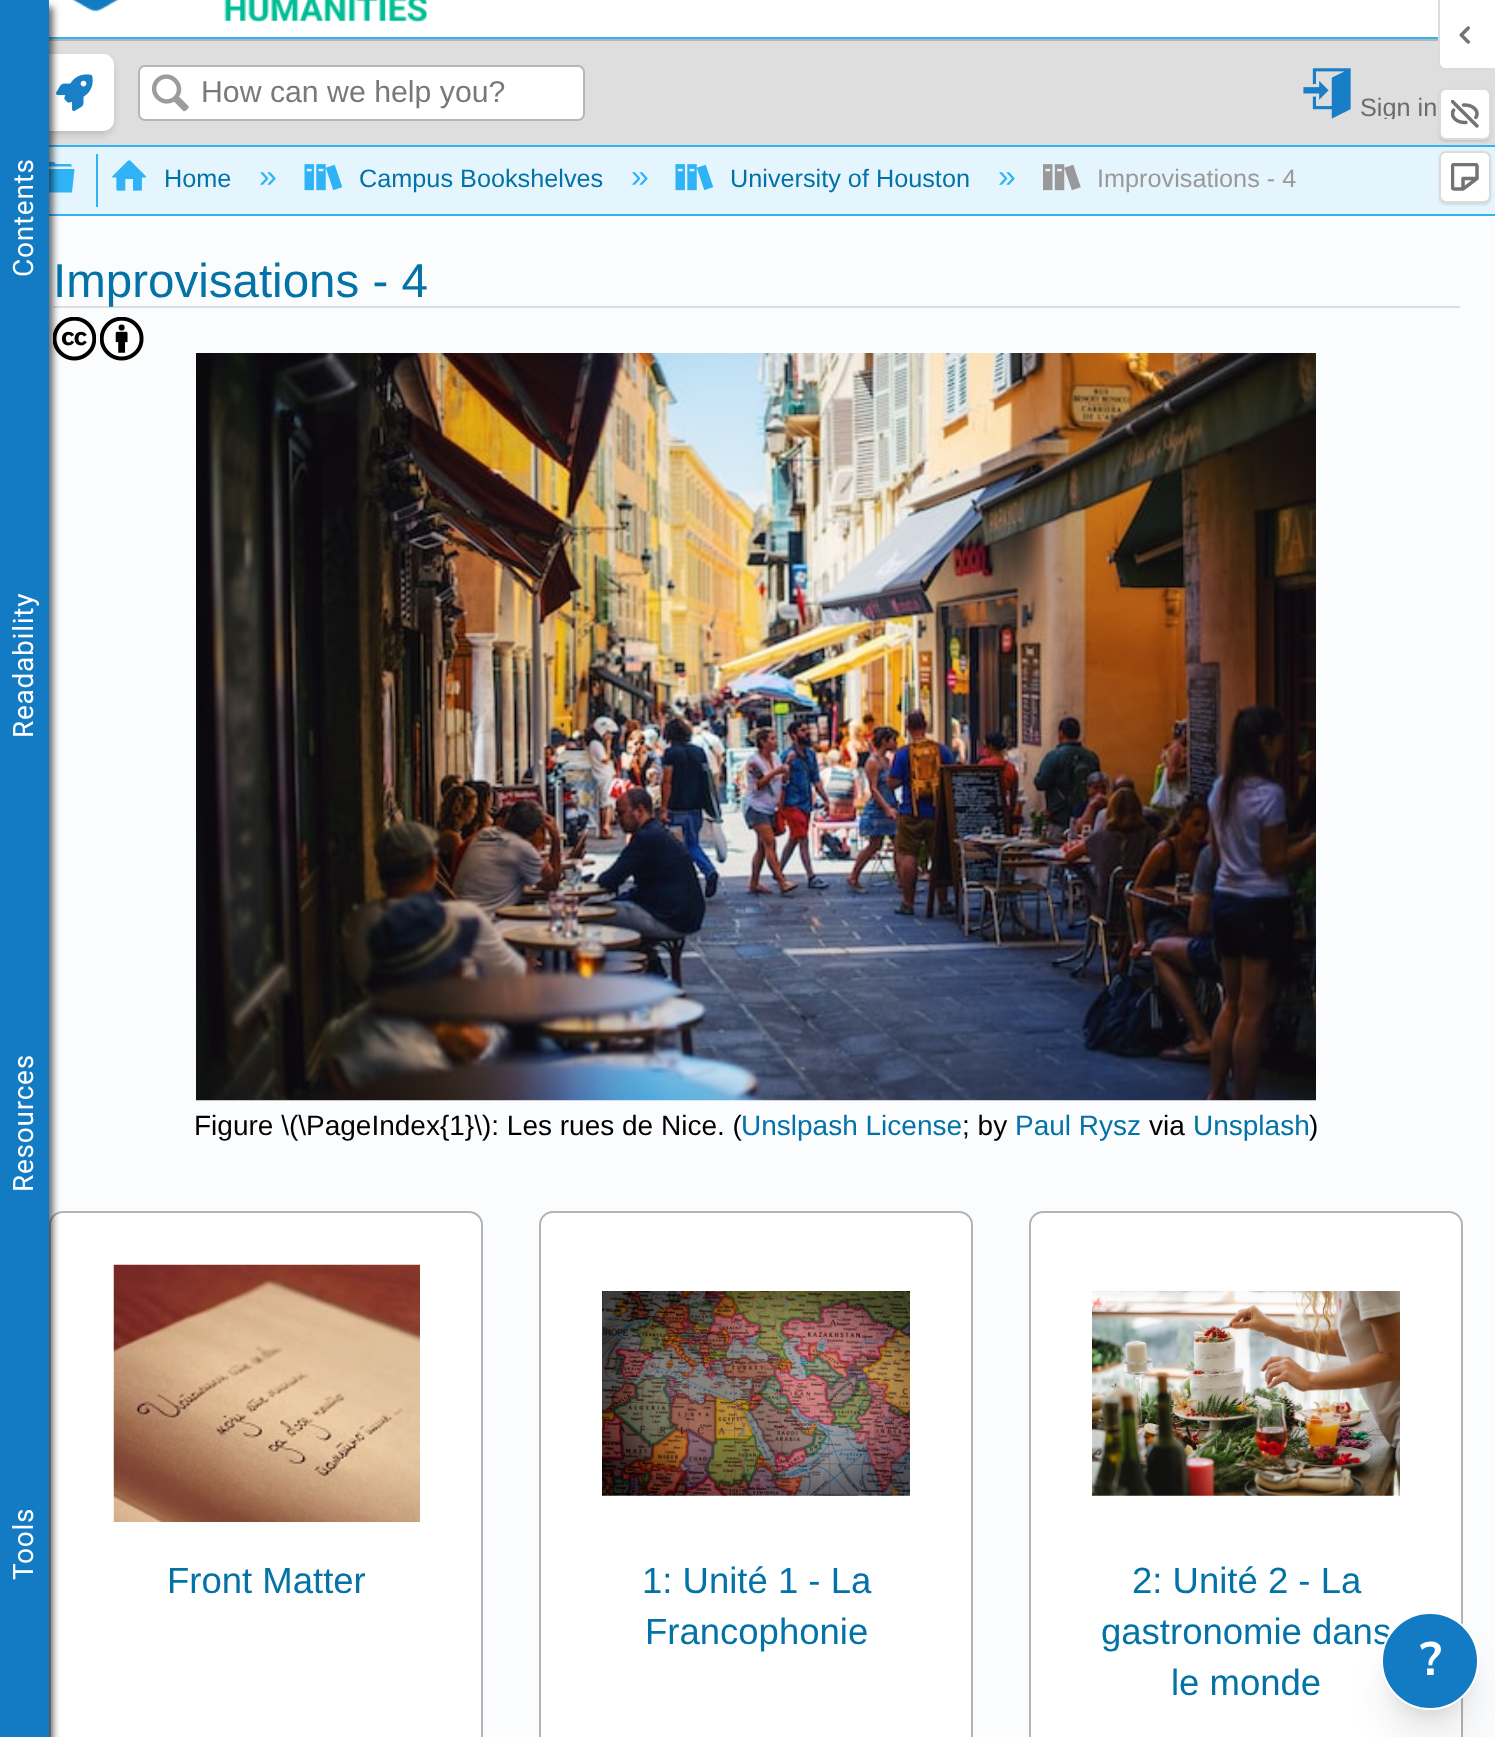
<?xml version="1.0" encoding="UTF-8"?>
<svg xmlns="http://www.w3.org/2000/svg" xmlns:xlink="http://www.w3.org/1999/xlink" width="1495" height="1737">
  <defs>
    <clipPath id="clip1"><rect x="1300" y="67" width="147" height="52" /></clipPath>
  </defs>
  <rect width="100%" height="100%" fill="#fbfcfe" />
  <rect x="49" width="1389" height="37" fill="#ffffff" />
  <rect x="1" y="-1" width="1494" height="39" fill="none" stroke="#30b3f6" stroke-width="2" />
  <rect x="49" y="41" width="1446" height="104" fill="#dedede" />
  <rect x="49" y="39" width="1389" height="2" fill="#b6b6b6" />
  <rect x="49" y="147" width="1446" height="67" fill="#e5f5fe" />
  <rect x="49" y="145" width="1446" height="2" fill="#30b3f6" />
  <rect x="39" y="60" width="73" height="73" rx="9" fill="#080808" fill-opacity="0.2" filter="blur(4.5px)" />
  <rect x="37" y="54" width="77" height="77" rx="11" fill="#ffffff" />
  <image x="56" y="74" width="37" height="38" xlink:href="image2.png" />
  <rect x="49" y="214" width="1446" height="2" fill="#30b3f6" />
  <path d="M 37 169 h 37.5 l -2.5 23.5 h -33 z m 34 -5 l 1 2.5 h -33 l 2.5 -4.5 h 13 l 1 2 z" fill="#30b3f6" />
  <rect x="53" y="306" width="1407" height="2" fill="#dddddd" />
  <image x="53" y="317" width="43" height="44" xlink:href="image8.png" />
  <rect x="50" y="1212" width="432" height="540" rx="13" fill="#ffffff" stroke="#b4b4b4" stroke-width="2" />
  <rect x="4" y="7" width="49" height="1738" fill="#000000" fill-opacity="0.6" filter="blur(3.5px)" />
  <rect width="49" height="1737" fill="#127bc4" />
  <image x="72" y="0" width="356" height="23" xlink:href="image1.png" />
  <rect x="139" y="66" width="445" height="54" rx="6" fill="#ffffff" stroke="#b6b6b6" stroke-width="2" />
  <image x="151" y="74" width="38" height="38" xlink:href="image3.png" />
  <image x="1303" y="68" width="48" height="51" xlink:href="image4.png" />
  <rect x="96" y="154" width="2" height="53" fill="#30b3f6" />
  <image x="112" y="160" width="35" height="31" xlink:href="image5.png" />
  <image x="304" y="164" width="39" height="27" xlink:href="image6.png" />
  <image x="675" y="164" width="39" height="27" xlink:href="image6.png" />
  <image x="1043" y="164" width="38" height="27" xlink:href="image7.png" />
  <image x="100" y="317" width="44" height="44" xlink:href="image9.png" />
  <image x="196" y="353" width="1120" height="748" xlink:href="image10.png" />
  <image x="113" y="1264" width="307" height="258" xlink:href="image11.png" />
  <rect x="540" y="1212" width="432" height="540" rx="13" fill="#ffffff" stroke="#b4b4b4" stroke-width="2" />
  <image x="602" y="1291" width="308" height="205" xlink:href="image12.png" />
  <rect x="1030" y="1212" width="432" height="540" rx="13" fill="#ffffff" stroke="#b4b4b4" stroke-width="2" />
  <image x="1092" y="1291" width="308" height="205" xlink:href="image13.png" />
  <rect x="1391" y="1636" width="77" height="77" rx="38.5" fill="#000000" fill-opacity="0.1" filter="blur(9px)" />
  <rect x="1390" y="1656" width="80" height="80" rx="40" fill="#000000" fill-opacity="0.1" filter="blur(22px)" />
  <path d="M 1440 0 h 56 v 68 h -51 c -3 0 -5 -2 -5 -5 z" fill="#ffffff" />
  <path d="M 1438 0 h 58 v 70 h -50 c -4 0 -8 -3 -8 -7 z m 2 0 h 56 v 68 h -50 c -3 0 -6 -2 -6 -5 z" fill="#dbdbdb" fill-rule="evenodd" />
  <image x="1459" y="26" width="11" height="18" xlink:href="image14.png" />
  <rect x="1439" y="89" width="52" height="53" rx="7" fill="#000000" fill-opacity="0.1" filter="blur(1px)" />
  <rect x="1440" y="89" width="50" height="50" rx="6" fill="#ffffff" stroke="#dbdbdb" stroke-width="2" />
  <image x="1451" y="100" width="28" height="28" xlink:href="image15.png" />
  <rect x="1439" y="152" width="52" height="53" rx="7" fill="#000000" fill-opacity="0.1" filter="blur(1px)" />
  <rect x="1440" y="152" width="50" height="50" rx="6" fill="#ffffff" stroke="#dbdbdb" stroke-width="2" />
  <image x="1451" y="163" width="28" height="28" xlink:href="image16.png" />
  <text x="33" y="277" transform="rotate(-90 33 277)" style="font-family: Roboto; font-size: 28px; letter-spacing: 0.75px; fill: #ffffff">Contents</text>
  <text x="33" y="738" transform="rotate(-90 33 738)" style="font-family: Roboto; font-size: 28px; letter-spacing: 0.75px; fill: #ffffff">Readability</text>
  <text x="33" y="1192" transform="rotate(-90 33 1192)" style="font-family: Roboto; font-size: 28px; letter-spacing: 0.75px; fill: #ffffff">Resources</text>
  <text x="33" y="1580" transform="rotate(-90 33 1580)" style="font-family: Roboto; font-size: 28px; letter-spacing: 0.75px; fill: #ffffff">Tools</text>
  <text x="201" y="102" style="font-family: Liberation Sans; font-size: 30.25px; fill: #797979">How can we help you?</text>
  <g clip-path="url(#clip1)">
    <text x="1360" y="116" style="font-family: Liberation Sans; font-size: 25.25px; fill: #6a6b6b">Sign in</text>
  </g>
  <text x="164" y="187" style="font-family: Liberation Sans; font-size: 25.25px; fill: #0372a6">Home</text>
  <text x="259" y="187" style="font-family: Liberation Sans; font-size: 32px; fill: #30b3f6">»</text>
  <text x="359" y="187" style="font-family: Liberation Sans; font-size: 25.25px; fill: #0372a6">Campus Bookshelves</text>
  <text x="631" y="187" style="font-family: Liberation Sans; font-size: 32px; fill: #30b3f6">»</text>
  <text x="730" y="187" style="font-family: Liberation Sans; font-size: 25.25px; fill: #0372a6">University of Houston</text>
  <text x="998" y="187" style="font-family: Liberation Sans; font-size: 32px; fill: #30b3f6">»</text>
  <text x="1097" y="187" style="font-family: Liberation Sans; font-size: 25.25px; fill: #999999">Improvisations - 4</text>
  <text x="53" y="297" style="font-family: Liberation Sans; font-size: 47.5px; fill: #0372a6">Improvisations - 4</text>
  <text x="194" y="1135" style="font-family: Liberation Sans; font-size: 28px; fill: #000000">Figure \(\PageIndex{1}\): Les rues de Nice. (</text>
  <text x="741" y="1135" style="font-family: Liberation Sans; font-size: 28px; fill: #0372a6">Unslpash License</text>
  <text x="962" y="1135" style="font-family: Liberation Sans; font-size: 28px; fill: #000000">; by</text>
  <text x="1015" y="1135" style="font-family: Liberation Sans; font-size: 28px; fill: #0372a6">Paul Rysz</text>
  <text x="1149" y="1135" style="font-family: Liberation Sans; font-size: 28px; fill: #000000">via</text>
  <text x="1193" y="1135" style="font-family: Liberation Sans; font-size: 28px; fill: #0372a6">Unsplash</text>
  <text x="1309" y="1135" style="font-family: Liberation Sans; font-size: 28px; fill: #000000">)</text>
  <text x="167" y="1593" style="font-family: Liberation Sans; font-size: 36.5px; fill: #0372a6">Front Matter</text>
  <text x="642" y="1593" style="font-family: Liberation Sans; font-size: 36.5px; fill: #0372a6">1: Unité 1 - La</text>
  <text x="645" y="1644" style="font-family: Liberation Sans; font-size: 36.5px; fill: #0372a6">Francophonie</text>
  <text x="1132" y="1593" style="font-family: Liberation Sans; font-size: 36.5px; fill: #0372a6">2: Unité 2 - La</text>
  <text x="1101" y="1644" style="font-family: Liberation Sans; font-size: 36.5px; fill: #0372a6">gastronomie dans</text>
  <text x="1171" y="1695" style="font-family: Liberation Sans; font-size: 36.5px; fill: #0372a6">le monde</text>
  <circle cx="1430" cy="1661" r="48" fill="#127bc4" stroke="#ffffff" stroke-width="2" />
  <text x="1420" y="1675" style="font-family: Nunito Sans; font-size: 47px; font-weight: bold; fill: #ffffff">?</text>
</svg>
